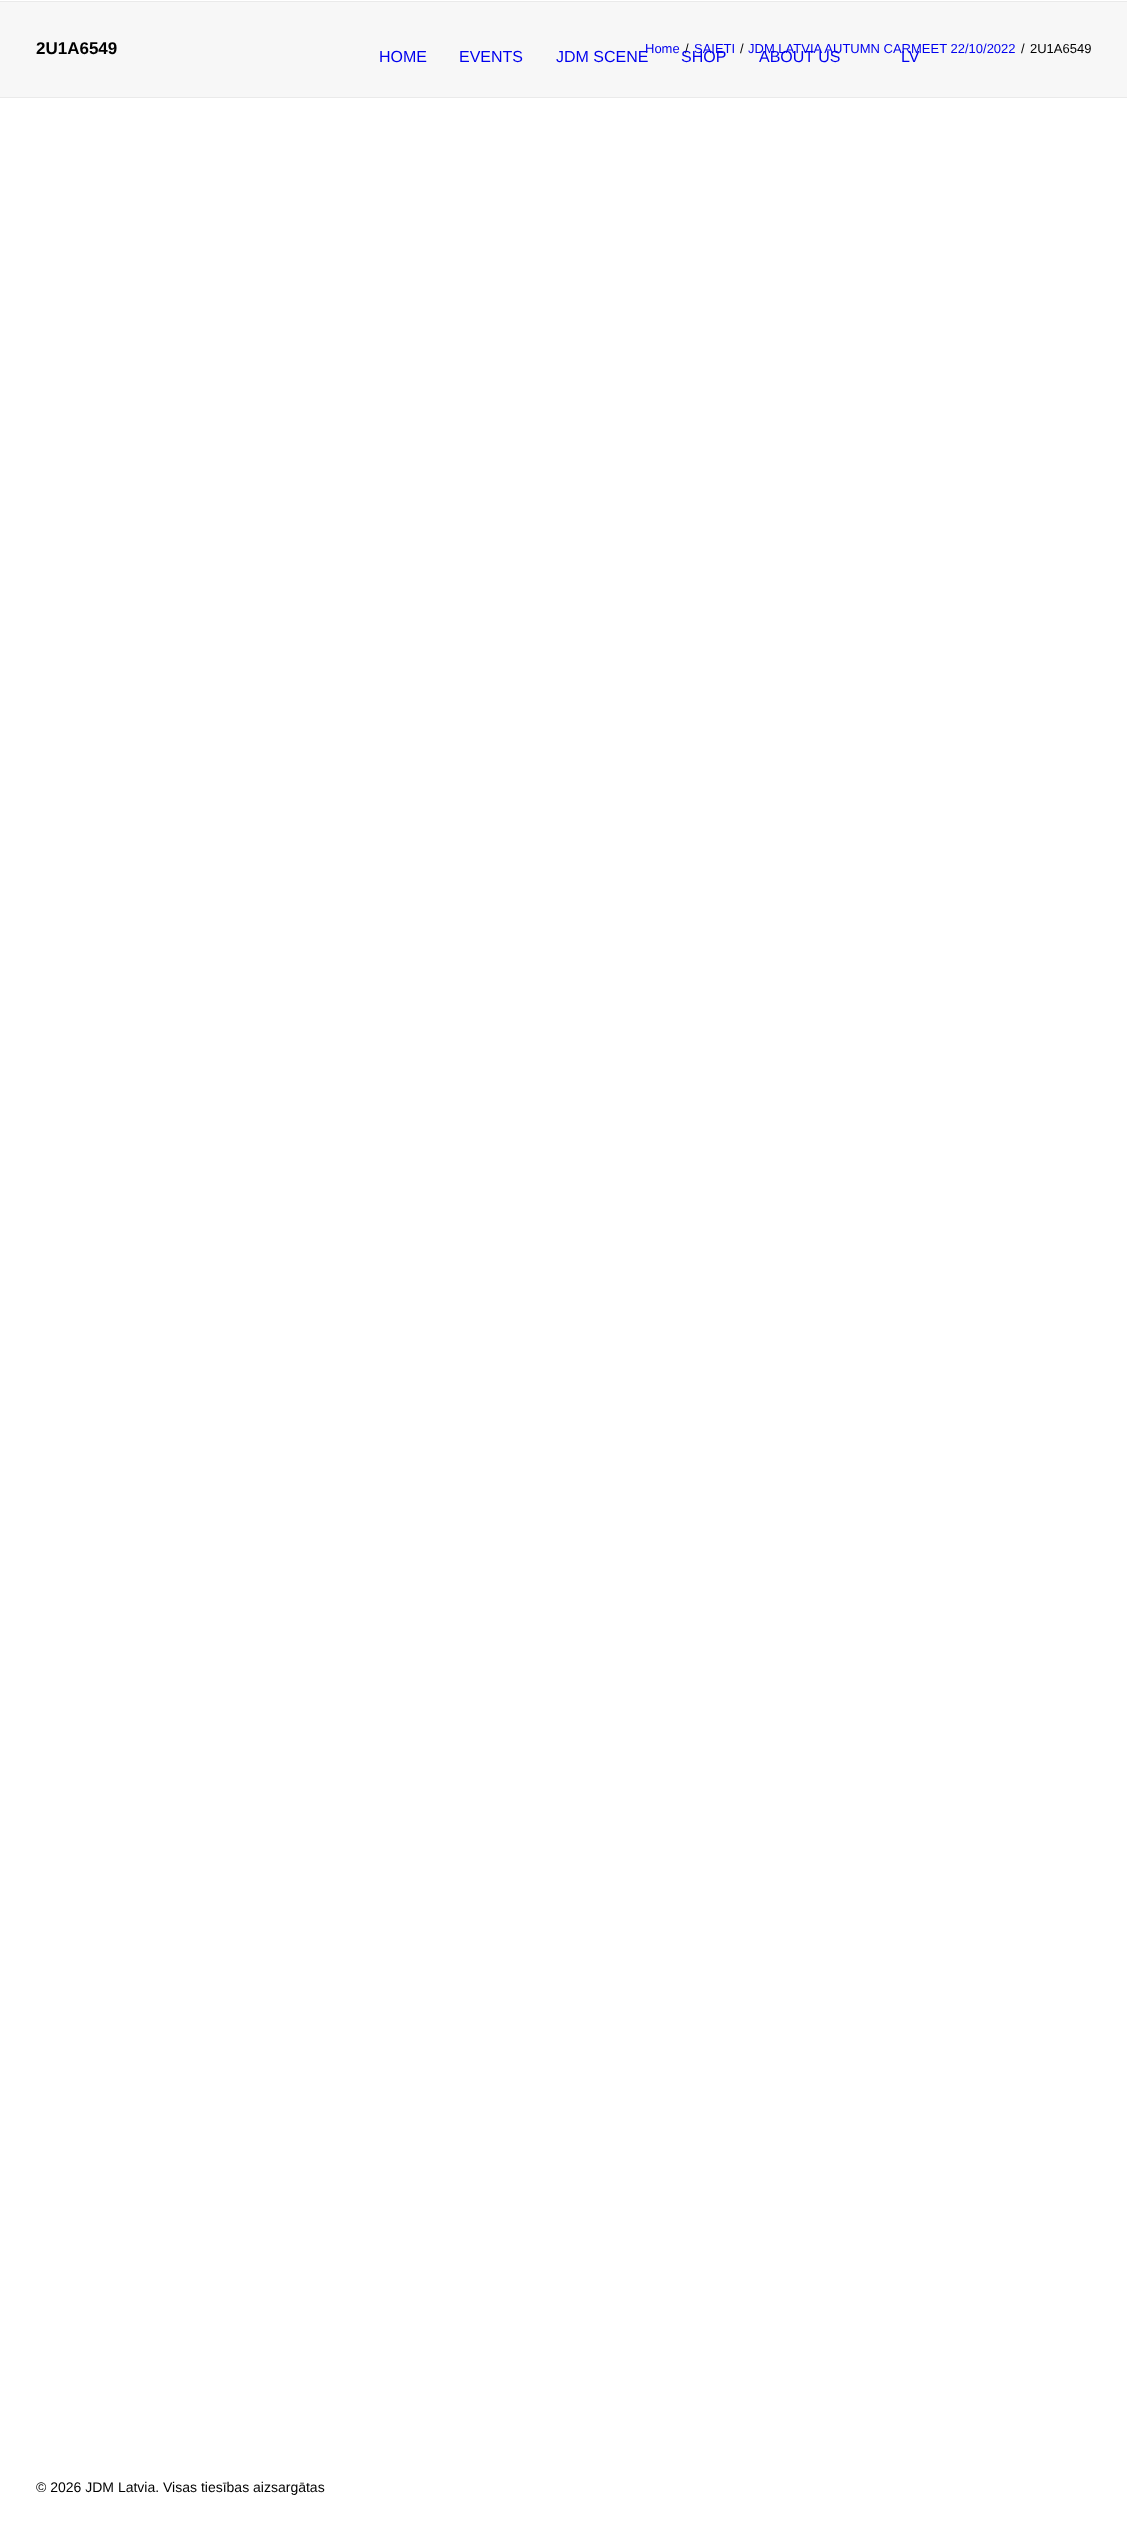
<?xml version="1.0" encoding="UTF-8"?>
<svg xmlns="http://www.w3.org/2000/svg" xmlns:xlink="http://www.w3.org/1999/xlink" width="1127" height="2523">
  <rect width="100%" height="100%" fill="#ffffff" />
  <rect y="2" width="1127" height="95" fill="#f7f7f7" />
  <rect y="1" width="1127" height="1" fill="#eaeaea" />
  <rect y="97" width="1127" height="1" fill="#eaeaea" />
  <text x="36" y="54" style="font-family: Liberation Sans; font-size: 17px; font-weight: bold; fill: #000000">2U1A6549</text>
  <text x="645" y="53" style="font-family: Liberation Sans; font-size: 13px; fill: #0000ee">Home</text>
  <text x="685" y="53" style="font-family: Liberation Sans; font-size: 13px; fill: #000000">/</text>
  <text x="694" y="53" style="font-family: Liberation Sans; font-size: 13px; fill: #0000ee">SAIETI</text>
  <text x="740" y="53" style="font-family: Liberation Sans; font-size: 13px; fill: #000000">/</text>
  <text x="748" y="53" style="font-family: Liberation Sans; font-size: 13px; fill: #0000ee">JDM LATVIA AUTUMN CARMEET 22/10/2022</text>
  <text x="1021" y="53" style="font-family: Liberation Sans; font-size: 13px; fill: #000000">/</text>
  <text x="1030" y="53" style="font-family: Liberation Sans; font-size: 13px; fill: #000000">2U1A6549</text>
  <text x="36" y="2492" style="font-family: Liberation Sans; font-size: 14px; fill: #000000">© 2026 JDM Latvia. Visas tiesības aizsargātas</text>
  <text x="379" y="62" style="font-family: Liberation Sans; font-size: 16px; fill: #0000ee">HOME</text>
  <text x="459" y="62" style="font-family: Liberation Sans; font-size: 16px; fill: #0000ee">EVENTS</text>
  <text x="556" y="62" style="font-family: Liberation Sans; font-size: 16px; fill: #0000ee">JDM SCENE</text>
  <text x="681" y="62" style="font-family: Liberation Sans; font-size: 16px; fill: #0000ee">SHOP</text>
  <text x="759" y="62" style="font-family: Liberation Sans; font-size: 16px; fill: #0000ee">ABOUT US</text>
  <text x="901" y="62" style="font-family: Liberation Sans; font-size: 16px; fill: #0000ee">LV</text>
</svg>
